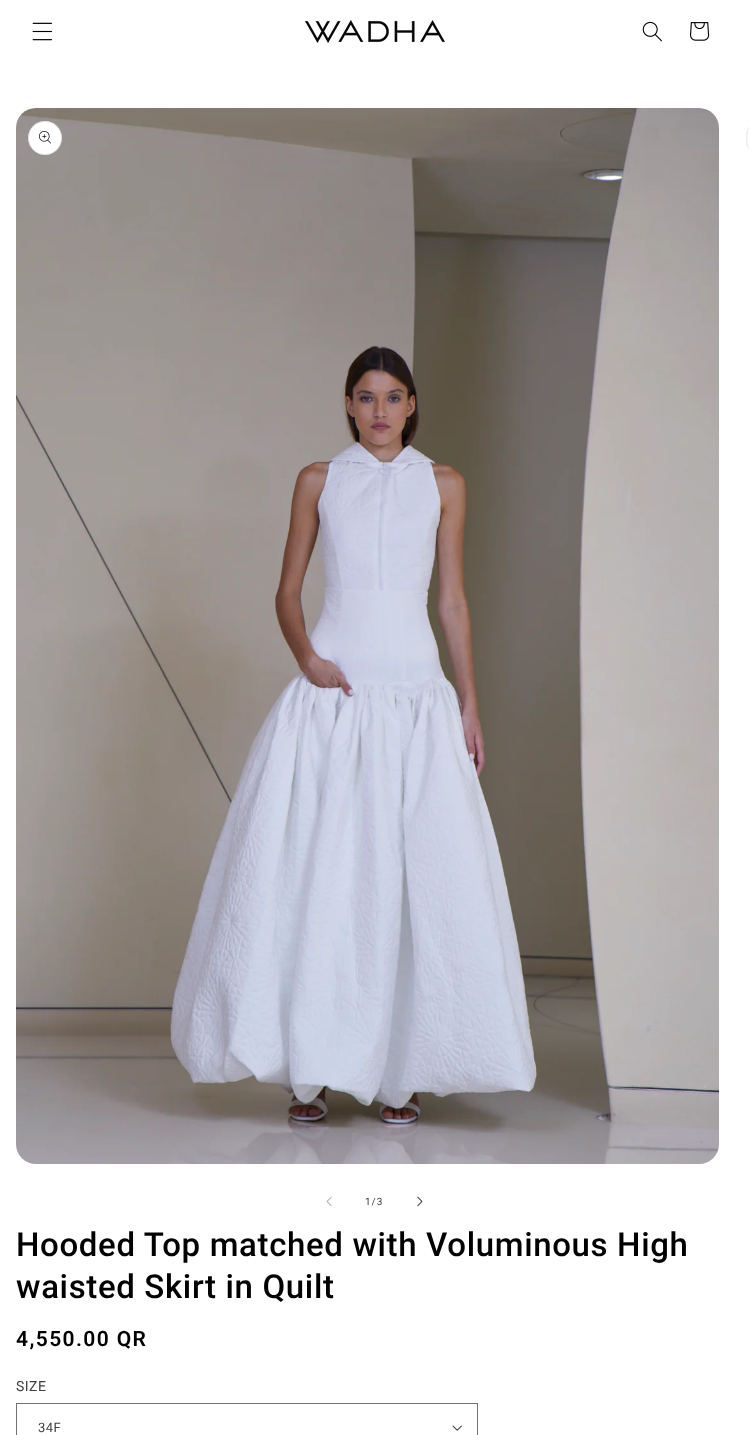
<?xml version="1.0" encoding="UTF-8"?>
<svg xmlns="http://www.w3.org/2000/svg" xmlns:xlink="http://www.w3.org/1999/xlink" width="749" height="1435">
  <rect width="100%" height="100%" fill="#ffffff" />
  <image x="32" y="22" width="20" height="19" xlink:href="image1.png" />
  <image x="305" y="20" width="140" height="23" xlink:href="image2.png" />
  <image x="642" y="21" width="20" height="21" xlink:href="image3.png" />
  <image x="690" y="22" width="20" height="19" xlink:href="image4.png" />
  <image x="16" y="108" width="703" height="1056" xlink:href="image5.png" />
  <circle cx="45" cy="138" r="17" fill="#ffffff" />
  <circle cx="45" cy="138" r="16.5" fill="none" stroke="#000000" stroke-opacity="0.1" />
  <image x="39" y="131" width="12" height="13" xlink:href="image6.png" />
  <rect x="746.5" y="121.5" width="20" height="33" rx="16" fill="none" stroke="#e6e6e6" />
  <image x="326" y="1196" width="6" height="10" xlink:href="image7.png" />
  <image x="417" y="1196" width="6" height="11" xlink:href="image8.png" />
  <image x="452" y="1425" width="10" height="6" xlink:href="image9.png" />
  <rect x="16.5" y="1403.5" width="461" height="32" fill="none" stroke="#737373" />
  <text x="365" y="1205" style="font-family: Roboto; font-size: 10px; letter-spacing: 1px; fill: #404040">1/3</text>
  <text x="16" y="1256" style="font-family: Roboto; font-size: 33px; font-weight: 500; letter-spacing: 0.65px; fill: #000000">Hooded Top matched with Voluminous High</text>
  <text x="16" y="1298" style="font-family: Roboto; font-size: 33px; font-weight: 500; letter-spacing: 0.65px; fill: #000000">waisted Skirt in Quilt</text>
  <text x="16" y="1346" style="font-family: Roboto; font-size: 21px; font-weight: 600; letter-spacing: 1.4px; fill: #000000">4,550.00 QR</text>
  <text x="16" y="1391" style="font-family: Roboto; font-size: 14px; letter-spacing: 0.5px; fill: #404040">SIZE</text>
  <text x="38" y="1432" style="font-family: Roboto; font-size: 13px; letter-spacing: 0.5px; fill: #404040">34F</text>
</svg>
